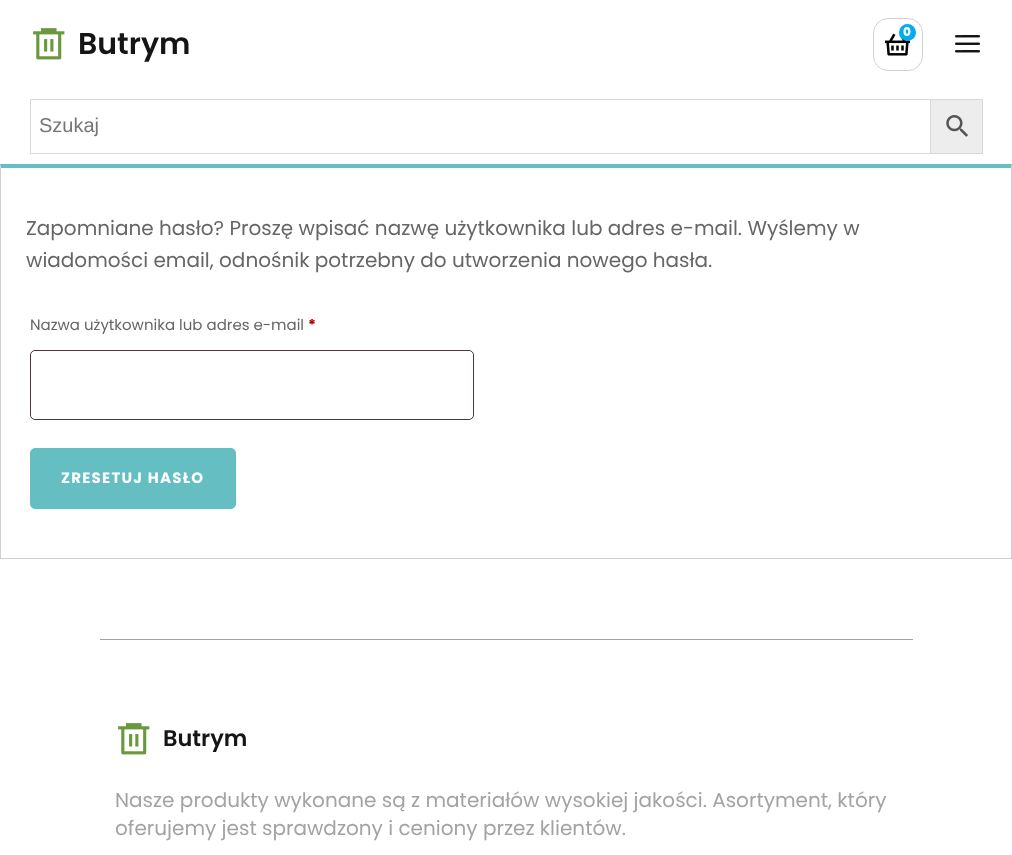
<?xml version="1.0" encoding="UTF-8"?>
<svg xmlns="http://www.w3.org/2000/svg" xmlns:xlink="http://www.w3.org/1999/xlink" width="1012" height="855">
  <rect width="100%" height="100%" fill="#ffffff" />
  <rect x="873.5" y="18.5" width="49" height="52" rx="14.5" fill="none" stroke="#d1d1d1" />
  <image x="885" y="33" width="25" height="23" xlink:href="image1.png" />
  <circle cx="907.5" cy="32.5" r="8.5" fill="#00adef" />
  <image x="955" y="35" width="25" height="18" xlink:href="image2.png" />
  <image x="33" y="28" width="32" height="32" xlink:href="image3.png" />
  <rect x="930.5" y="99.5" width="52" height="54" fill="#ededed" stroke="#d8d8d8" />
  <rect x="30.5" y="99.5" width="900" height="54" fill="none" stroke="#d8d8d8" />
  <image x="946" y="115" width="22" height="22" xlink:href="image4.png" />
  <path d="M 0 164 h 1012 l -1 4 h -1010 z" fill="#65bec2" />
  <path d="M 1012 164 v 395 l -1 -1 v -390 z" fill="#d3ced2" />
  <rect y="558" width="1012" height="1" fill="#d3ced2" />
  <path d="M 0 559 v -395 l 1 4 v 390 z" fill="#d3ced2" />
  <rect x="30.5" y="350.5" width="443" height="69" rx="4.5" fill="none" stroke="#4d3939" />
  <rect x="30.5" y="448.5" width="205" height="60" rx="4.5" fill="#65bec2" stroke="#65bec2" />
  <rect x="100" y="639" width="813" height="1" fill="#a3a3a3" />
  <image x="118" y="723" width="32" height="32" xlink:href="image3.png" />
  <text x="903" y="36" style="font-family: Poppins; font-size: 12px; font-weight: 800; fill: #ffffff">0</text>
  <text x="78" y="54" style="font-family: Poppins; font-size: 30px; font-weight: 600; fill: #151515">Butrym</text>
  <text x="39" y="132" style="font-family: Liberation Sans; font-size: 20px; fill: #757575">Szukaj</text>
  <text x="26" y="235" style="font-family: Poppins; font-size: 20px; fill: #666666">Zapomniane hasło? Proszę wpisać nazwę użytkownika lub adres e-mail. Wyślemy w</text>
  <text x="26" y="267" style="font-family: Poppins; font-size: 20px; fill: #666666">wiadomości email, odnośnik potrzebny do utworzenia nowego hasła.</text>
  <text x="30" y="330" style="font-family: Poppins; font-size: 15px; fill: #666666">Nazwa użytkownika lub adres e-mail</text>
  <text x="308" y="330" style="font-family: Poppins; font-size: 15px; font-weight: bold; fill: #aa0000">*</text>
  <text x="61" y="483" style="font-family: Poppins; font-size: 15px; font-weight: bold; letter-spacing: 1.25px; fill: #ffffff">ZRESETUJ HASŁO</text>
  <text x="163" y="746" style="font-family: Poppins; font-size: 22.5px; font-weight: 600; fill: #151515">Butrym</text>
  <text x="115" y="807" style="font-family: Poppins; font-size: 20px; fill: #a3a3a3">Nasze produkty wykonane są z materiałów wysokiej jakości. Asortyment, który</text>
  <text x="115" y="835" style="font-family: Poppins; font-size: 20px; fill: #a3a3a3">oferujemy jest sprawdzony i ceniony przez klientów.</text>
</svg>
